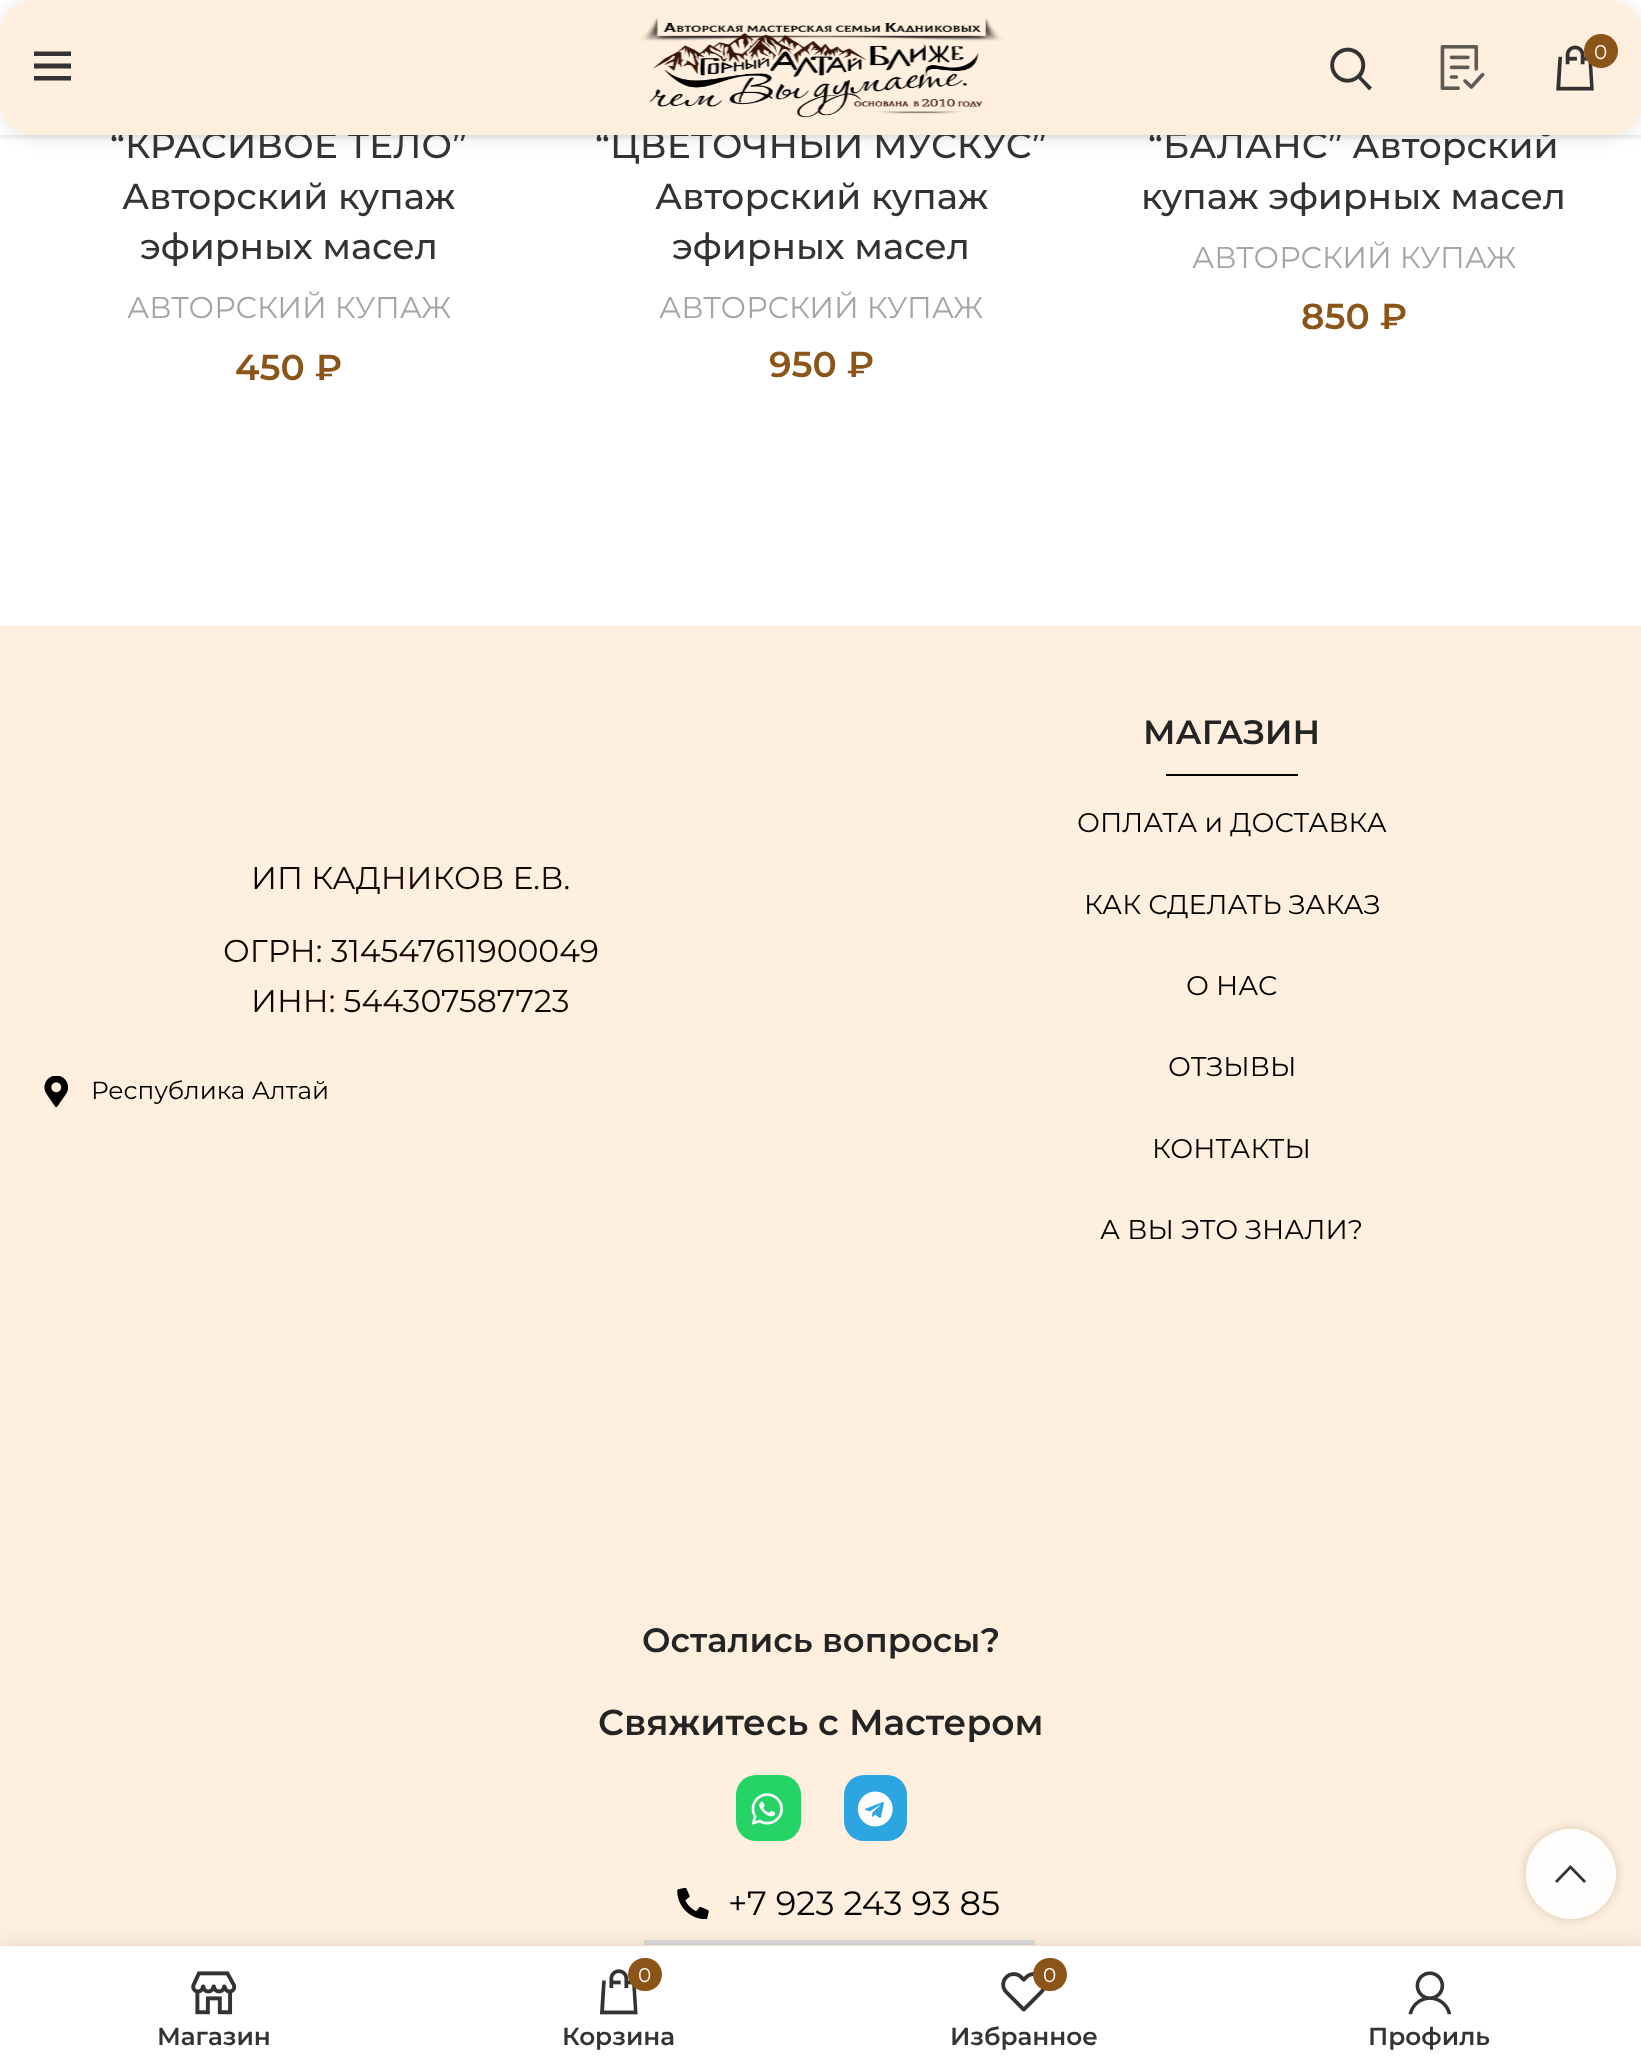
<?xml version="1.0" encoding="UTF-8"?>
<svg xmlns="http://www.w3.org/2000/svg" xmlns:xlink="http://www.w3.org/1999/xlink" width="1641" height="2068">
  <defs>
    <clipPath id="clip1"><rect x="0" y="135" width="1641" height="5" /></clipPath>
    <clipPath id="clip2"><path d="M 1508 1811 h 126 v 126 h -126 z m 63 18 c 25 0 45 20 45 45 c 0 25 -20 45 -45 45 c -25 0 -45 -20 -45 -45 c 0 -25 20 -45 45 -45 z" clip-rule="evenodd" /></clipPath>
  </defs>
  <rect width="100%" height="100%" fill="#ffffff" />
  <g clip-path="url(#clip1)">
    <rect y="2" width="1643" height="135" fill="#000000" fill-opacity="0.1" filter="blur(3.5px)" />
  </g>
  <rect y="2" width="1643" height="135" rx="34" fill="#000000" fill-opacity="0.1" filter="blur(9px)" />
  <rect y="626" width="1641" height="1320" fill="#ffefde" />
  <image x="44" y="1076" width="25" height="31" xlink:href="image5.png" />
  <rect x="1166" y="774" width="132" height="2" fill="#000000" />
  <rect x="736" y="1775" width="65" height="66" rx="20" fill="#25d366" />
  <image x="751" y="1793" width="32" height="32" xlink:href="image6.png" />
  <rect x="844" y="1775" width="63" height="66" rx="20" fill="#2ca5e0" />
  <image x="857" y="1791" width="36" height="36" xlink:href="image7.png" />
  <image x="677" y="1888" width="32" height="31" xlink:href="image8.png" />
  <rect x="644" y="1940" width="391" height="5" fill="#dddddd" />
  <g clip-path="url(#clip2)">
    <rect x="1526" y="1829" width="90" height="90" rx="45" fill="#000000" fill-opacity="0.17" filter="blur(5.5px)" />
  </g>
  <circle cx="1571" cy="1874" r="45" fill="#ffffff" fill-opacity="0.9" />
  <path d="M 1570.5 1865 l 15.5 16 l -2 2 l -13.5 -14 l -13.5 14 l -2 -2 z" fill="#333333" />
  <rect y="1946" width="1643" height="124" fill="#000000" fill-opacity="0.12" filter="blur(10px)" />
  <rect y="1946" width="1641" height="122" fill="#ffffff" />
  <image x="191" y="1971" width="46" height="44" xlink:href="image9.png" />
  <image x="600" y="1969" width="38" height="46" xlink:href="image10.png" />
  <rect x="628" y="1958" width="34" height="33" rx="16.5" fill="#8b5418" />
  <image x="1001" y="1972" width="44" height="40" xlink:href="image11.png" />
  <rect x="1033" y="1958" width="34" height="33" rx="16.5" fill="#8b5418" />
  <image x="1408" y="1971" width="44" height="44" xlink:href="image12.png" />
  <text x="110" y="158" style="font-family: Montserrat; font-size: 36px; font-weight: 500; fill: #333333">“КРАСИВОЕ ТЕЛО”</text>
  <text x="122" y="209" style="font-family: Montserrat; font-size: 36px; font-weight: 500; fill: #333333">Авторский купаж</text>
  <text x="140" y="259" style="font-family: Montserrat; font-size: 36px; font-weight: 500; fill: #333333">эфирных масел</text>
  <text x="127" y="318" style="font-family: Montserrat; font-size: 30px; fill: #a5a5a5">АВТОРСКИЙ КУПАЖ</text>
  <text x="235" y="380" style="font-family: Montserrat; font-size: 36px; font-weight: 600; fill: #8b5418">450 ₽</text>
  <text x="595" y="158" style="font-family: Montserrat; font-size: 36px; font-weight: 500; fill: #333333">“ЦВЕТОЧНЫЙ МУСКУС”</text>
  <text x="655" y="209" style="font-family: Montserrat; font-size: 36px; font-weight: 500; fill: #333333">Авторский купаж</text>
  <text x="672" y="259" style="font-family: Montserrat; font-size: 36px; font-weight: 500; fill: #333333">эфирных масел</text>
  <text x="659" y="318" style="font-family: Montserrat; font-size: 30px; fill: #a5a5a5">АВТОРСКИЙ КУПАЖ</text>
  <text x="769" y="377" style="font-family: Montserrat; font-size: 36px; font-weight: 600; fill: #8b5418">950 ₽</text>
  <text x="1148" y="158" style="font-family: Montserrat; font-size: 36px; font-weight: 500; fill: #333333">“БАЛАНС” Авторский</text>
  <rect width="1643" height="135" rx="34" fill="#ffefde" />
  <image x="1556" y="45" width="38" height="46" xlink:href="image4.png" />
  <circle cx="1601" cy="51" r="17" fill="#8b5418" />
  <text x="1594" y="59" style="font-family: Montserrat; font-size: 20px; fill: #ffffff">0</text>
  <image x="1440" y="45" width="45" height="45" xlink:href="image3.png" />
  <image x="1330" y="47" width="42" height="44" xlink:href="image2.png" />
  <image x="621" y="11" width="403" height="113" xlink:href="image1.png" />
  <path d="M 34 51.5 h 37 v 4.5 h -37 z m 0 12 h 37 v 5 h -37 z m 0 12.5 h 37 v 4.5 h -37 z" fill="#333333" />
  <text x="1141" y="209" style="font-family: Montserrat; font-size: 36px; font-weight: 500; fill: #333333">купаж эфирных масел</text>
  <text x="1192" y="268" style="font-family: Montserrat; font-size: 30px; fill: #a5a5a5">АВТОРСКИЙ КУПАЖ</text>
  <text x="1301" y="329" style="font-family: Montserrat; font-size: 36px; font-weight: 600; fill: #8b5418">850 ₽</text>
  <text x="251" y="889" style="font-family: Montserrat; font-size: 31.5px; fill: #150202">ИП КАДНИКОВ Е.В.</text>
  <text x="223" y="962" style="font-family: Montserrat; font-size: 31.5px; fill: #150202">ОГРН: 314547611900049</text>
  <text x="251" y="1012" style="font-family: Montserrat; font-size: 31.5px; fill: #150202">ИНН: 544307587723</text>
  <text x="91" y="1099" style="font-family: Montserrat; font-size: 24.75px; fill: #000000">Республика Алтай</text>
  <text x="1143" y="744" style="font-family: Montserrat; font-size: 33.75px; font-weight: 600; fill: #242424">МАГАЗИН</text>
  <text x="1077" y="832" style="font-family: Montserrat; font-size: 27px; fill: #000000">ОПЛАТА и ДОСТАВКА</text>
  <text x="1084" y="914" style="font-family: Montserrat; font-size: 27px; fill: #000000">КАК СДЕЛАТЬ ЗАКАЗ</text>
  <text x="1186" y="995" style="font-family: Montserrat; font-size: 27px; fill: #000000">О НАС</text>
  <text x="1168" y="1076" style="font-family: Montserrat; font-size: 27px; fill: #000000">ОТЗЫВЫ</text>
  <text x="1152" y="1158" style="font-family: Montserrat; font-size: 27px; fill: #000000">КОНТАКТЫ</text>
  <text x="1100" y="1239" style="font-family: Montserrat; font-size: 27px; fill: #000000">А ВЫ ЭТО ЗНАЛИ?</text>
  <text x="642" y="1652" style="font-family: Montserrat; font-size: 33.75px; font-weight: 600; fill: #242424">Остались вопросы?</text>
  <text x="598" y="1735" style="font-family: Montserrat; font-size: 36px; font-weight: 600; fill: #242424">Свяжитесь с Мастером</text>
  <text x="728" y="1915" style="font-family: Montserrat; font-size: 33.75px; fill: #000000">+7 923 243 93 85</text>
  <text x="157" y="2045" style="font-family: Montserrat; font-size: 24.75px; font-weight: 600; fill: #333333">Магазин</text>
  <text x="638" y="1982" style="font-family: Montserrat; font-size: 20px; fill: #ffffff">0</text>
  <text x="562" y="2045" style="font-family: Montserrat; font-size: 24.75px; font-weight: 600; fill: #333333">Корзина</text>
  <text x="1043" y="1982" style="font-family: Montserrat; font-size: 20px; fill: #ffffff">0</text>
  <text x="950" y="2045" style="font-family: Montserrat; font-size: 24.75px; font-weight: 600; fill: #333333">Избранное</text>
  <text x="1368" y="2045" style="font-family: Montserrat; font-size: 24.75px; font-weight: 600; fill: #333333">Профиль</text>
</svg>
